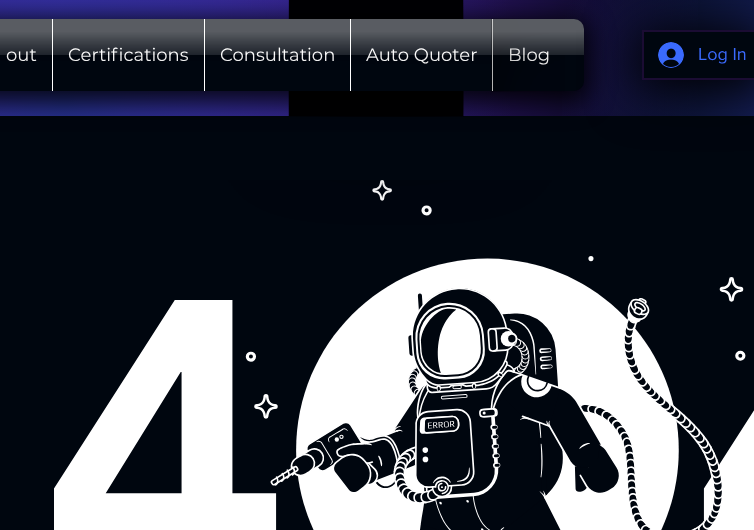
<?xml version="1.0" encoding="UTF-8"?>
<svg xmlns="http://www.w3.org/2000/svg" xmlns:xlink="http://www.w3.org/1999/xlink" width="754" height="530">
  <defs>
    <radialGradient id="g1" gradientUnits="userSpaceOnUse" cx="58" cy="11" r="928"><stop offset="0" stop-color="#6627d8" /><stop offset="0.7" stop-color="#00060f" /></radialGradient>
    <radialGradient id="g2" gradientUnits="userSpaceOnUse" cx="64" cy="102" r="922"><stop offset="0" stop-color="#25318d" stop-opacity="0.99" /><stop offset="0.5" stop-color="#25318d" stop-opacity="0" /></radialGradient>
    <radialGradient id="g3" gradientUnits="userSpaceOnUse" cx="925" cy="104" r="930"><stop offset="0" stop-color="#25318d" /><stop offset="0.4" stop-color="#25318d" stop-opacity="0" /></radialGradient>
  </defs>
  <rect width="100%" height="100%" fill="#00060f" />
  <rect width="698" height="116" fill="url(#g1)" />
  <rect width="510" height="116" fill="url(#g2)" />
  <rect x="562" width="192" height="116" fill="url(#g3)" />
  <image x="288" y="0" width="176" height="117" xlink:href="image1.png" />
  <rect x="-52" y="19" width="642" height="84" rx="16" fill="#000000" fill-opacity="0.83" filter="blur(12px)" />
  <rect x="-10" y="19" width="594" height="72" rx="10" fill="#00060f" />
  <image x="565" y="19" width="19" height="36" xlink:href="image2.png" />
  <rect x="52" y="19" width="1" height="72" fill="#ffffff" />
  <rect x="204" y="19" width="1" height="72" fill="#ffffff" />
  <rect x="350" y="19" width="1" height="72" fill="#ffffff" />
  <rect x="492" y="19" width="1" height="72" fill="#ffffff" />
  <image x="54" y="180" width="700" height="350" xlink:href="image9.png" />
  <text x="6" y="61" style="font-family: Montserrat; font-size: 18px; fill: #ffffff">out</text>
  <image x="0" y="19" width="52" height="42" xlink:href="image3.png" />
  <text x="68" y="61" style="font-family: Montserrat; font-size: 18px; fill: #ffffff">Certifications</text>
  <image x="53" y="19" width="151" height="42" xlink:href="image4.png" />
  <text x="220" y="61" style="font-family: Montserrat; font-size: 18px; fill: #ffffff">Consultation</text>
  <image x="205" y="19" width="145" height="42" xlink:href="image5.png" />
  <text x="366" y="61" style="font-family: Montserrat; font-size: 18px; fill: #ffffff">Auto Quoter</text>
  <image x="351" y="19" width="141" height="45" xlink:href="image6.png" />
  <text x="508" y="61" style="font-family: Montserrat; font-size: 18px; fill: #ffffff">Blog</text>
  <image x="491" y="18" width="74" height="74" xlink:href="image7.png" />
  <rect x="636" y="30" width="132" height="62" fill="#000000" filter="blur(25px)" />
  <rect x="643" y="31" width="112" height="48" fill="#00060f" stroke="#1b0c33" stroke-width="2" />
  <image x="658" y="42" width="26" height="26" xlink:href="image8.png" />
  <text x="698" y="60" style="font-family: 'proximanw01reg'; font-size: 18px; fill: #3a6afd">Log In</text>
</svg>
